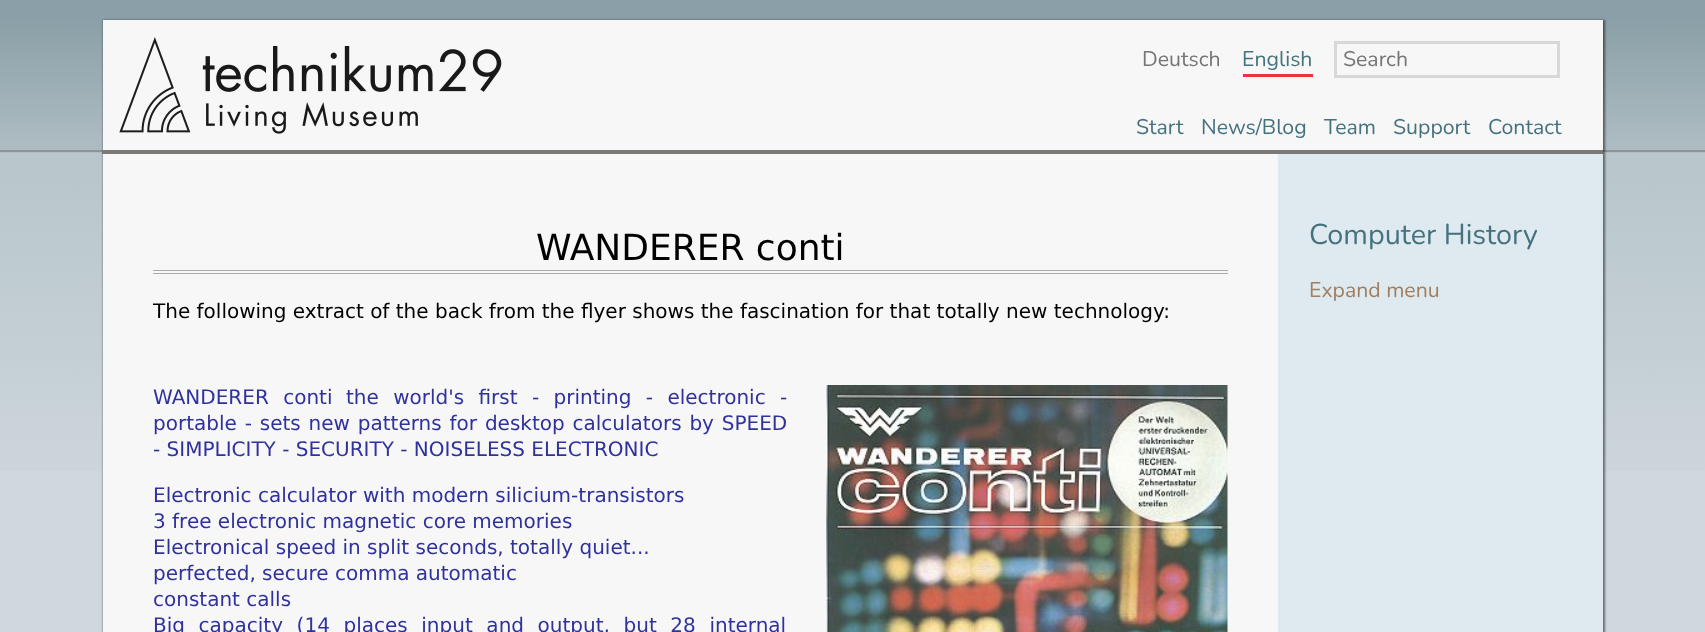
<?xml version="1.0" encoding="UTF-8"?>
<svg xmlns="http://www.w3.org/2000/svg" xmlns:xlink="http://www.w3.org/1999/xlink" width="1705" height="632">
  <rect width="100%" height="100%" fill="#d0d8dd" />
  <image x="0" y="0" width="1705" height="471" xlink:href="image1.png" />
  <rect x="103" y="20" width="1502" height="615" fill="#000000" fill-opacity="0.5" filter="blur(1px)" />
  <rect x="103" y="20" width="1500" height="612" fill="#f7f7f7" />
  <image x="119" y="37" width="383" height="97" xlink:href="image2.png" />
  <rect x="102" y="150" width="1501" height="4" fill="#7a7976" />
  <rect x="1243" y="74" width="70" height="3" fill="#ec3142" />
  <rect x="1335.5" y="42.5" width="223" height="34" fill="none" stroke="#d8d8d8" stroke-width="3" />
  <rect x="1278" y="154" width="325" height="478" fill="#dfeaf0" />
  <rect x="153" y="270" width="1075" height="1" fill="#aaaaaa" />
  <rect x="153" y="273" width="1075" height="1" fill="#aaaaaa" />
  <image x="826" y="385" width="402" height="247" xlink:href="image3.png" />
  <text x="1142" y="66" style="font-family: Nunito; font-size: 21.25px; fill: #757575">Deutsch</text>
  <text x="1242" y="66" style="font-family: Nunito; font-size: 21.25px; fill: #46727e">English</text>
  <text x="1343" y="66" style="font-family: Nunito; font-size: 21.25px; fill: #757575">Search</text>
  <text x="1136" y="134" style="font-family: Nunito; font-size: 21.25px; fill: #46727e">Start</text>
  <text x="1201" y="134" style="font-family: Nunito; font-size: 21.25px; fill: #46727e">News/Blog</text>
  <text x="1324" y="134" style="font-family: Nunito; font-size: 21.25px; fill: #46727e">Team</text>
  <text x="1393" y="134" style="font-family: Nunito; font-size: 21.25px; fill: #46727e">Support</text>
  <text x="1488" y="134" style="font-family: Nunito; font-size: 21.25px; fill: #46727e">Contact</text>
  <text x="536" y="260" style="font-family: DejaVu Sans; font-size: 36px; fill: #000000">WANDERER conti</text>
  <text x="153" y="318" style="font-family: DejaVu Sans; font-size: 20px; fill: #000000">The following extract of the back from the flyer shows the fascination for that totally new technology:</text>
  <text x="153" y="404" word-spacing="8" style="font-family: DejaVu Sans; font-size: 20px; fill: #2f319d">WANDERER conti</text>
  <text x="346" y="404" word-spacing="8" style="font-family: DejaVu Sans; font-size: 20px; fill: #2f319d">the world's first - printing - electronic -</text>
  <text x="153" y="430" word-spacing="1.5" style="font-family: DejaVu Sans; font-size: 20px; fill: #2f319d">portable - sets new patterns for desktop calculators by SPEED</text>
  <text x="153" y="456" style="font-family: DejaVu Sans; font-size: 20px; fill: #2f319d">- SIMPLICITY - SECURITY - NOISELESS ELECTRONIC</text>
  <text x="153" y="502" style="font-family: DejaVu Sans; font-size: 20px; fill: #2f319d">Electronic calculator with modern silicium-transistors</text>
  <text x="153" y="528" style="font-family: DejaVu Sans; font-size: 20px; fill: #2f319d">3 free electronic magnetic core memories</text>
  <text x="153" y="554" style="font-family: DejaVu Sans; font-size: 20px; fill: #2f319d">Electronical speed in split seconds, totally quiet...</text>
  <text x="153" y="580" style="font-family: DejaVu Sans; font-size: 20px; fill: #2f319d">perfected, secure comma automatic</text>
  <text x="153" y="606" style="font-family: DejaVu Sans; font-size: 20px; fill: #2f319d">constant calls</text>
  <text x="153" y="632" word-spacing="7.25" style="font-family: DejaVu Sans; font-size: 20px; fill: #2f319d">Big capacity (14 places input and output, but 28 internal</text>
  <text x="1309" y="244" style="font-family: Nunito; font-size: 28.75px; fill: #46727e">Computer History</text>
  <text x="1309" y="297" style="font-family: Nunito; font-size: 21.25px; fill: #a07f60">Expand menu</text>
</svg>
